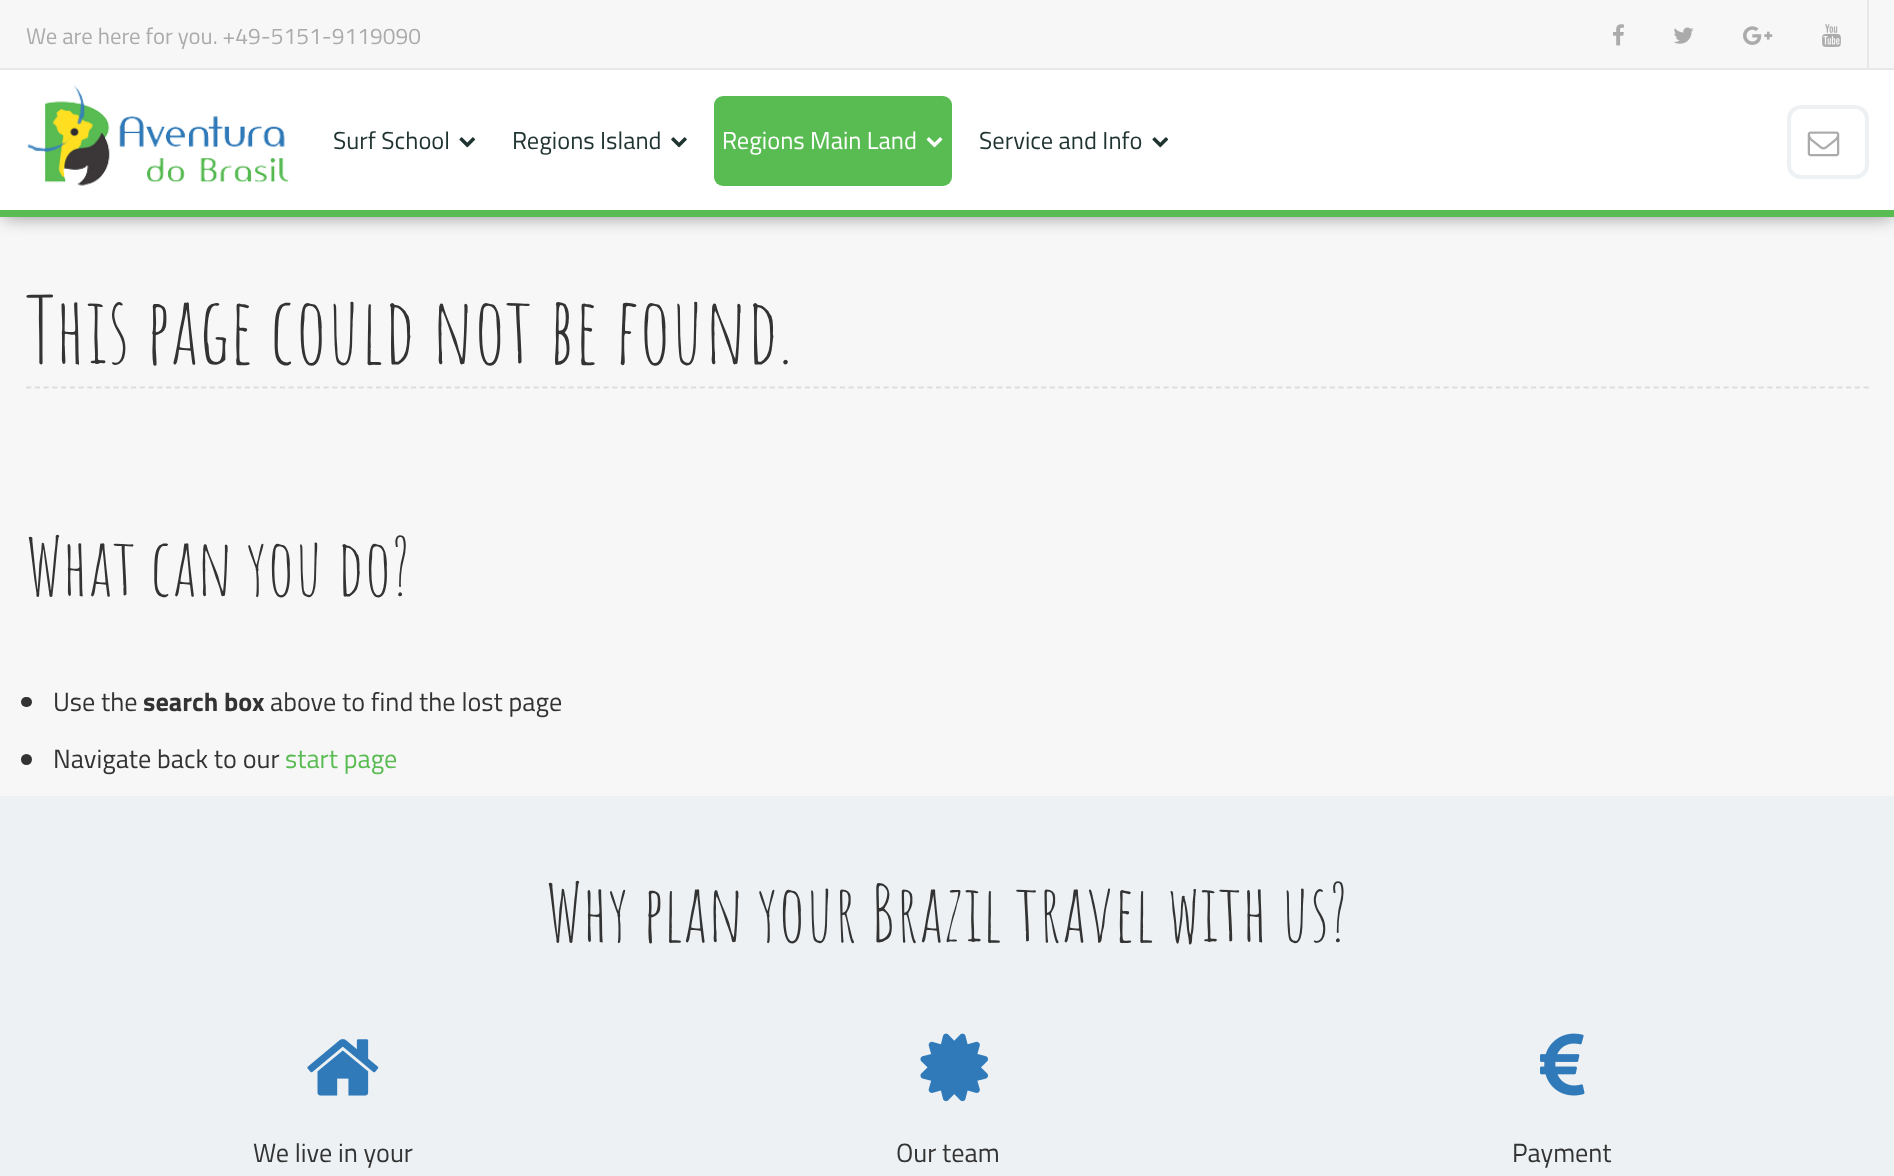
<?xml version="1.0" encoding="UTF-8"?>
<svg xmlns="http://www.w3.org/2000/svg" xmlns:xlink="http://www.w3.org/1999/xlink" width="1894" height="1176">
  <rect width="100%" height="100%" fill="#f7f7f7" />
  <rect x="4" y="7" width="1888" height="210" fill="#000000" fill-opacity="0.41" filter="blur(9px)" />
  <rect y="70" width="1894" height="140" fill="#ffffff" />
  <rect width="1894" height="68" fill="#f7f7f7" />
  <rect y="68" width="1894" height="2" fill="#e8e8e8" />
  <rect x="1867" width="2" height="70" fill="#e8e8e8" />
  <image x="1613" y="24" width="11" height="22" xlink:href="image1.png" />
  <image x="1674" y="27" width="20" height="17" xlink:href="image2.png" />
  <image x="1743" y="26" width="30" height="19" xlink:href="image3.png" />
  <image x="1822" y="24" width="19" height="23" xlink:href="image4.png" />
  <image x="27" y="84" width="262" height="102" xlink:href="image5.png" />
  <image x="459" y="137" width="17" height="11" xlink:href="image6.png" />
  <image x="671" y="137" width="16" height="11" xlink:href="image7.png" />
  <rect x="714" y="96" width="238" height="90" rx="9" fill="#59bc52" />
  <image x="926" y="137" width="17" height="11" xlink:href="image8.png" />
  <image x="1152" y="137" width="17" height="11" xlink:href="image6.png" />
  <rect x="1789" y="107" width="78" height="70" rx="12" fill="none" stroke="#eef1f3" stroke-width="4" />
  <image x="1807" y="131" width="33" height="26" xlink:href="image9.png" />
  <rect y="210" width="1894" height="7" fill="#59bc52" />
  <path d="M 26 387.5 h 1843" fill="none" stroke="#dddddd" stroke-width="1.8" stroke-dasharray="5.25 3.5" />
  <rect x="21" y="697" width="11" height="10" rx="5" fill="#333333" />
  <circle cx="26.5" cy="759.5" r="5.5" fill="#333333" />
  <rect y="796" width="1894" height="380" fill="#eef1f3" />
  <image x="307" y="1039" width="72" height="57" xlink:href="image10.png" />
  <image x="920" y="1033" width="68" height="69" xlink:href="image11.png" />
  <image x="1540" y="1033" width="45" height="63" xlink:href="image12.png" />
  <text x="26" y="44" style="font-family: Titillium Web; font-size: 22.75px; fill: #ababab">We are here for you. +49-5151-9119090</text>
  <text x="333" y="149" style="font-family: Titillium Web; font-size: 24.5px; fill: #1f3331">Surf School</text>
  <text x="512" y="149" style="font-family: Titillium Web; font-size: 24.5px; fill: #1f3331">Regions Island</text>
  <text x="722" y="149" style="font-family: Titillium Web; font-size: 24.5px; fill: #ffffff">Regions Main Land</text>
  <text x="979" y="149" style="font-family: Titillium Web; font-size: 24.5px; fill: #1f3331">Service and Info</text>
  <text x="26" y="364" style="font-family: Amatic SC; font-size: 92px; fill: #333333">This page could not be found.</text>
  <text x="26" y="596" style="font-family: Amatic SC; font-size: 78.75px; fill: #333333">What can you do?</text>
  <text x="53" y="711" style="font-family: Titillium Web; font-size: 26.25px; fill: #333333">Use the</text>
  <text x="143" y="711" style="font-family: Titillium Web; font-size: 26.25px; font-weight: bold; fill: #333333">search box</text>
  <text x="270" y="711" style="font-family: Titillium Web; font-size: 26.25px; fill: #333333">above to find the lost page</text>
  <text x="53" y="768" style="font-family: Titillium Web; font-size: 26.25px; fill: #333333">Navigate back to our</text>
  <text x="285" y="768" style="font-family: Titillium Web; font-size: 26.25px; fill: #59bc52">start page</text>
  <text x="546" y="942" style="font-family: Amatic SC; font-size: 78.75px; fill: #333333">Why plan your Brazil travel with us?</text>
  <text x="253" y="1162" style="font-family: Titillium Web; font-size: 26.25px; fill: #333333">We live in your</text>
  <text x="896" y="1162" style="font-family: Titillium Web; font-size: 26.25px; fill: #333333">Our team</text>
  <text x="1512" y="1162" style="font-family: Titillium Web; font-size: 26.25px; fill: #333333">Payment</text>
</svg>
